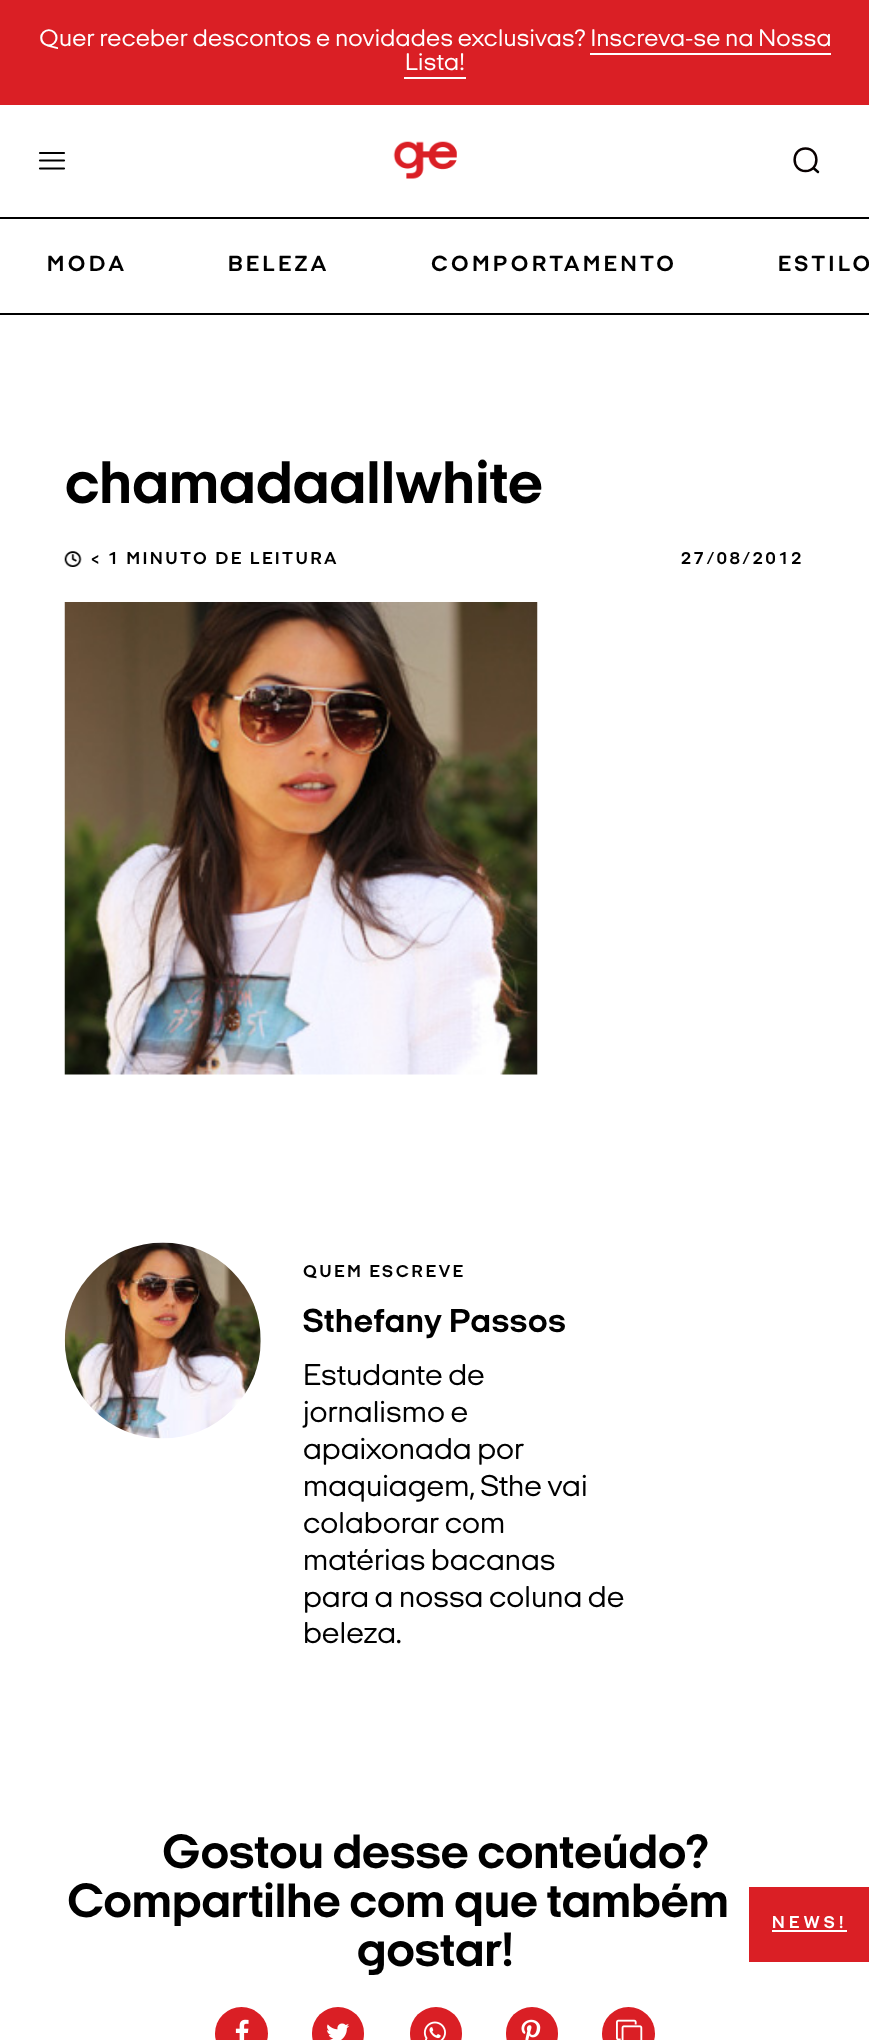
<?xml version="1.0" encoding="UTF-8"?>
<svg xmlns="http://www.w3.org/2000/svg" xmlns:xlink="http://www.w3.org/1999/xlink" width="869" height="2040">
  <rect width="100%" height="100%" fill="#ffffff" />
  <rect width="869" height="105" fill="#da1f25" />
  <rect x="590" y="53" width="241" height="2" fill="#ffffff" />
  <rect x="404" y="77" width="62" height="2" fill="#ffffff" />
  <path d="M 40 160.5 h 24 m -24 -7.5 h 24 m -24 15.5 h 24" fill="none" stroke="#000000" stroke-width="2.2" stroke-linecap="round" stroke-linejoin="round" />
  <image x="393" y="141" width="64" height="38" xlink:href="image1.png" />
  <path d="M 818 172 l -4 -3.5" fill="none" stroke="#000000" stroke-width="2.5" stroke-linecap="round" />
  <path d="M 805.5 171 c 14.5 0 14.5 -22.5 0 -22.5 c -14.5 0 -14.5 22.5 0 22.5 z" fill="none" stroke="#090000" stroke-width="2.5" stroke-linecap="round" />
  <rect y="217" width="869" height="2" fill="#000000" />
  <rect y="313" width="869" height="2" fill="#000000" />
  <image x="64" y="551" width="18" height="16" xlink:href="image2.png" />
  <image x="64" y="602" width="474" height="473" xlink:href="image3.png" />
  <image x="64" y="1242" width="197" height="197" xlink:href="image4.png" />
  <circle cx="241.5" cy="2033.5" r="26.5" fill="#da1f25" />
  <image x="235" y="2019" width="14" height="21" xlink:href="image5.png" />
  <rect x="312" y="2007" width="52" height="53" rx="26" fill="#da1f25" />
  <image x="327" y="2023" width="23" height="17" xlink:href="image6.png" />
  <rect x="410" y="2007" width="52" height="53" rx="26" fill="#da1f25" />
  <image x="423" y="2021" width="23" height="19" xlink:href="image7.png" />
  <rect x="506" y="2007" width="52" height="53" rx="26" fill="#da1f25" />
  <image x="521" y="2019" width="20" height="21" xlink:href="image8.png" />
  <circle cx="628.5" cy="2033.5" r="26.5" fill="#da1f25" />
  <image x="616" y="2019" width="27" height="21" xlink:href="image9.png" />
  <rect x="749" y="1887" width="120" height="75" fill="#da1f25" />
  <rect x="772" y="1930" width="75" height="2" fill="#ffffff" />
  <text x="39" y="46" style="font-family: 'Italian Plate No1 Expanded'; font-size: 24.5px; letter-spacing: 0.25px; fill: #ffffff">Quer receber descontos e novidades exclusivas? Inscreva-se na Nossa</text>
  <text x="405" y="70" style="font-family: 'Italian Plate No1 Expanded'; font-size: 24.5px; letter-spacing: 0.25px; fill: #ffffff">Lista!</text>
  <text x="47" y="271" style="font-family: 'Italian Plate No1 Expanded'; font-size: 22.4px; font-weight: bold; letter-spacing: 3.6px; fill: #000000">MODA</text>
  <text x="228" y="271" style="font-family: 'Italian Plate No1 Expanded'; font-size: 22.4px; font-weight: bold; letter-spacing: 3.6px; fill: #000000">BELEZA</text>
  <text x="431" y="271" style="font-family: 'Italian Plate No1 Expanded'; font-size: 22.4px; font-weight: bold; letter-spacing: 3.6px; fill: #000000">COMPORTAMENTO</text>
  <text x="778" y="271" style="font-family: 'Italian Plate No1 Expanded'; font-size: 22.4px; font-weight: bold; letter-spacing: 3.6px; fill: #000000">ESTILO</text>
  <text x="65" y="503" style="font-family: 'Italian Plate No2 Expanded'; font-size: 61.5px; font-weight: bold; fill: #000000">chamadaallwhite</text>
  <text x="91" y="564" style="font-family: 'Italian Plate No2 Expanded'; font-size: 17.5px; font-weight: bold; letter-spacing: 2.8px; fill: #000000">&lt; 1 MINUTO DE LEITURA</text>
  <text x="681" y="564" style="font-family: 'Italian Plate No2 Expanded'; font-size: 17.5px; font-weight: bold; letter-spacing: 2.8px; fill: #000000">27/08/2012</text>
  <text x="303" y="1277" style="font-family: 'Italian Plate No2 Expanded'; font-size: 17.5px; font-weight: bold; letter-spacing: 2.8px; fill: #000000">QUEM ESCREVE</text>
  <text x="303" y="1332" style="font-family: 'Italian Plate No2 Expanded'; font-size: 34px; font-weight: bold; letter-spacing: 0.7px; fill: #000000">Sthefany Passos</text>
  <text x="303" y="1385" style="font-family: 'Italian Plate No1 Expanded'; font-size: 30.75px; fill: #000000">Estudante de</text>
  <text x="303" y="1422" style="font-family: 'Italian Plate No1 Expanded'; font-size: 30.75px; fill: #000000">jornalismo e</text>
  <text x="303" y="1459" style="font-family: 'Italian Plate No1 Expanded'; font-size: 30.75px; fill: #000000">apaixonada por</text>
  <text x="303" y="1496" style="font-family: 'Italian Plate No1 Expanded'; font-size: 30.75px; fill: #000000">maquiagem, Sthe vai</text>
  <text x="303" y="1533" style="font-family: 'Italian Plate No1 Expanded'; font-size: 30.75px; fill: #000000">colaborar com</text>
  <text x="303" y="1570" style="font-family: 'Italian Plate No1 Expanded'; font-size: 30.75px; fill: #000000">matérias bacanas</text>
  <text x="303" y="1607" style="font-family: 'Italian Plate No1 Expanded'; font-size: 30.75px; fill: #000000">para a nossa coluna de</text>
  <text x="303" y="1643" style="font-family: 'Italian Plate No1 Expanded'; font-size: 30.75px; fill: #000000">beleza.</text>
  <text x="162" y="1868" style="font-family: 'Italian Plate No2 Expanded'; font-size: 49.25px; font-weight: bold; fill: #000000">Gostou desse conteúdo?</text>
  <text x="67" y="1917" style="font-family: 'Italian Plate No2 Expanded'; font-size: 49.25px; font-weight: bold; fill: #000000">Compartilhe com que também</text>
  <text x="357" y="1966" style="font-family: 'Italian Plate No2 Expanded'; font-size: 49.25px; font-weight: bold; fill: #000000">gostar!</text>
  <text x="772" y="1928" style="font-family: 'Italian Plate No2 Expanded'; font-size: 17.5px; font-weight: bold; letter-spacing: 4.5px; fill: #ffffff">NEWS!</text>
</svg>
